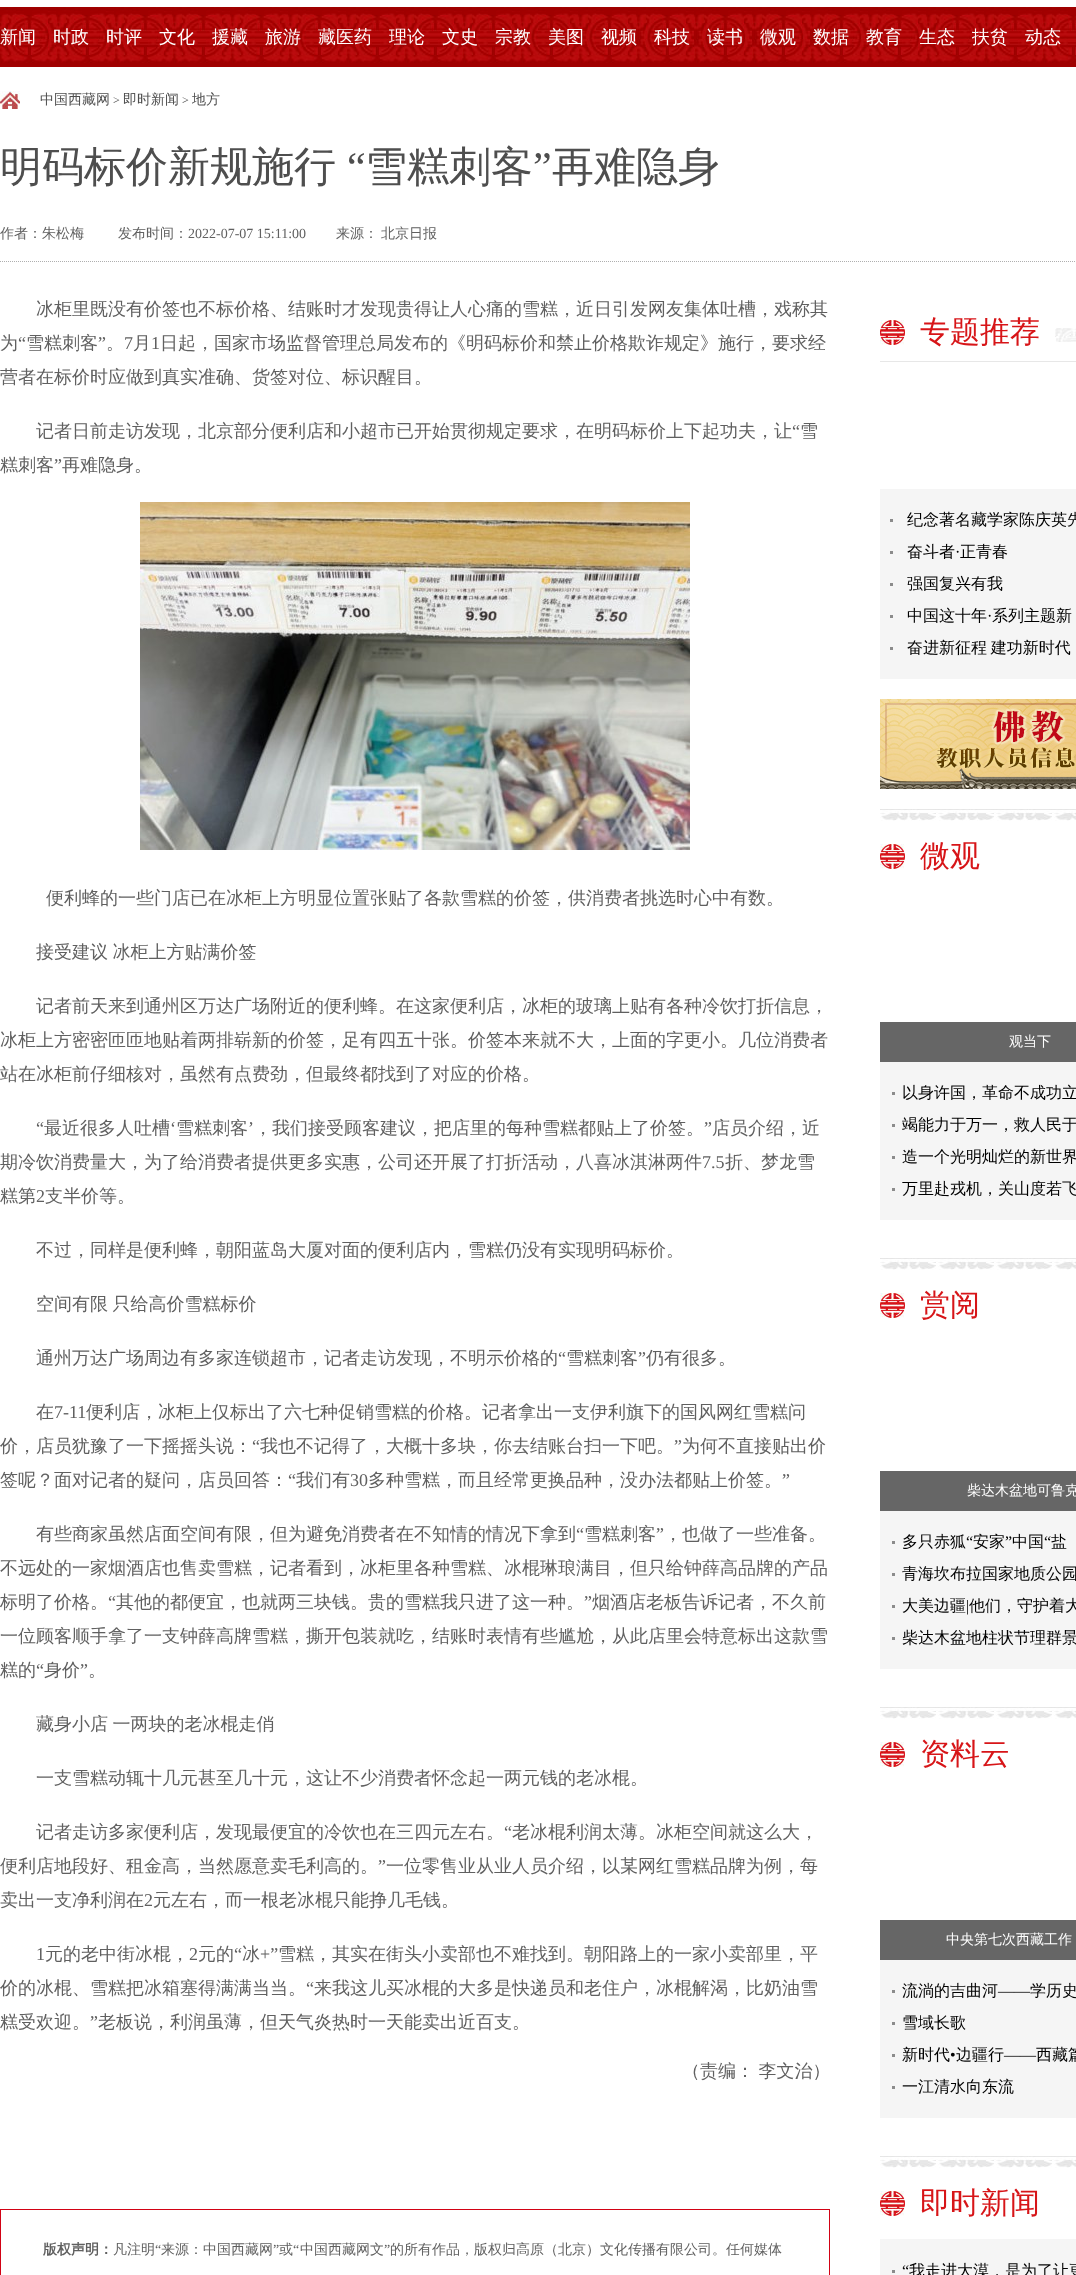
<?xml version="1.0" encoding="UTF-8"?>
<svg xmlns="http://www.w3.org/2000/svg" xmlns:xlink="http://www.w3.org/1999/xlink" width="1076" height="2275">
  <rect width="100%" height="100%" fill="#ffffff" />
  <image x="0" y="7" width="1076" height="60" xlink:href="image1.png" />
  <image x="0" y="91" width="20" height="18" xlink:href="image2.png" />
  <path d="M 0 261.5 h 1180" fill="none" stroke="#afafaf" stroke-dasharray="1 1" />
  <image x="140" y="502" width="550" height="348" xlink:href="image3.png" />
  <rect x="0.5" y="2209.5" width="829" height="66" fill="none" stroke="#d20215" />
  <rect x="880" y="361" width="196" height="1" fill="#e7e7e7" />
  <image x="880" y="320" width="25" height="25" xlink:href="image4.png" />
  <image x="1055" y="328" width="21" height="14" xlink:href="image5.png" />
  <rect x="880" y="489" width="196" height="190" fill="#f5f5f5" />
  <rect x="890" y="519" width="3" height="3" fill="#8b8b8b" />
  <rect x="890" y="551" width="3" height="3" fill="#8b8b8b" />
  <rect x="890" y="583" width="3" height="3" fill="#8b8b8b" />
  <rect x="890" y="615" width="3" height="3" fill="#8b8b8b" />
  <rect x="890" y="647" width="3" height="3" fill="#8b8b8b" />
  <image x="880" y="809" width="196" height="12" xlink:href="image6.png" />
  <image x="880" y="699" width="196" height="90" xlink:href="image7.png" />
  <image x="880" y="1258" width="196" height="12" xlink:href="image6.png" />
  <image x="880" y="844" width="25" height="25" xlink:href="image4.png" />
  <rect x="880" y="1022" width="196" height="40" fill="#666666" />
  <rect x="880" y="1062" width="196" height="158" fill="#f5f5f5" />
  <rect x="892" y="1092" width="3" height="3" fill="#8b8b8b" />
  <rect x="892" y="1124" width="3" height="3" fill="#8b8b8b" />
  <rect x="892" y="1156" width="3" height="3" fill="#8b8b8b" />
  <rect x="892" y="1188" width="3" height="3" fill="#8b8b8b" />
  <image x="880" y="1707" width="196" height="12" xlink:href="image6.png" />
  <image x="880" y="1293" width="25" height="25" xlink:href="image4.png" />
  <rect x="880" y="1471" width="196" height="40" fill="#666666" />
  <rect x="880" y="1511" width="196" height="158" fill="#f5f5f5" />
  <rect x="892" y="1541" width="3" height="3" fill="#8b8b8b" />
  <rect x="892" y="1573" width="3" height="3" fill="#8b8b8b" />
  <rect x="892" y="1605" width="3" height="3" fill="#8b8b8b" />
  <rect x="892" y="1637" width="3" height="3" fill="#8b8b8b" />
  <image x="880" y="2156" width="196" height="12" xlink:href="image6.png" />
  <image x="880" y="1742" width="25" height="25" xlink:href="image4.png" />
  <rect x="880" y="1920" width="196" height="40" fill="#666666" />
  <rect x="880" y="1960" width="196" height="158" fill="#f5f5f5" />
  <rect x="892" y="1990" width="3" height="3" fill="#8b8b8b" />
  <rect x="892" y="2022" width="3" height="3" fill="#8b8b8b" />
  <rect x="892" y="2054" width="3" height="3" fill="#8b8b8b" />
  <rect x="892" y="2086" width="3" height="3" fill="#8b8b8b" />
  <image x="880" y="2191" width="25" height="25" xlink:href="image4.png" />
  <rect x="880" y="2239" width="196" height="36" fill="#f5f5f5" />
  <rect x="892" y="2270" width="3" height="3" fill="#8b8b8b" />
  <text x="0" y="43" style="font-family: WenQuanYi Zen Hei; font-size: 18px; font-weight: 500; fill: #ffffff">新闻</text>
  <text x="53" y="43" style="font-family: WenQuanYi Zen Hei; font-size: 18px; font-weight: 500; fill: #ffffff">时政</text>
  <text x="106" y="43" style="font-family: WenQuanYi Zen Hei; font-size: 18px; font-weight: 500; fill: #ffffff">时评</text>
  <text x="159" y="43" style="font-family: WenQuanYi Zen Hei; font-size: 18px; font-weight: 500; fill: #ffffff">文化</text>
  <text x="212" y="43" style="font-family: WenQuanYi Zen Hei; font-size: 18px; font-weight: 500; fill: #ffffff">援藏</text>
  <text x="265" y="43" style="font-family: WenQuanYi Zen Hei; font-size: 18px; font-weight: 500; fill: #ffffff">旅游</text>
  <text x="318" y="43" style="font-family: WenQuanYi Zen Hei; font-size: 18px; font-weight: 500; fill: #ffffff">藏医药</text>
  <text x="389" y="43" style="font-family: WenQuanYi Zen Hei; font-size: 18px; font-weight: 500; fill: #ffffff">理论</text>
  <text x="442" y="43" style="font-family: WenQuanYi Zen Hei; font-size: 18px; font-weight: 500; fill: #ffffff">文史</text>
  <text x="495" y="43" style="font-family: WenQuanYi Zen Hei; font-size: 18px; font-weight: 500; fill: #ffffff">宗教</text>
  <text x="548" y="43" style="font-family: WenQuanYi Zen Hei; font-size: 18px; font-weight: 500; fill: #ffffff">美图</text>
  <text x="601" y="43" style="font-family: WenQuanYi Zen Hei; font-size: 18px; font-weight: 500; fill: #ffffff">视频</text>
  <text x="654" y="43" style="font-family: WenQuanYi Zen Hei; font-size: 18px; font-weight: 500; fill: #ffffff">科技</text>
  <text x="707" y="43" style="font-family: WenQuanYi Zen Hei; font-size: 18px; font-weight: 500; fill: #ffffff">读书</text>
  <text x="760" y="43" style="font-family: WenQuanYi Zen Hei; font-size: 18px; font-weight: 500; fill: #ffffff">微观</text>
  <text x="813" y="43" style="font-family: WenQuanYi Zen Hei; font-size: 18px; font-weight: 500; fill: #ffffff">数据</text>
  <text x="866" y="43" style="font-family: WenQuanYi Zen Hei; font-size: 18px; font-weight: 500; fill: #ffffff">教育</text>
  <text x="919" y="43" style="font-family: WenQuanYi Zen Hei; font-size: 18px; font-weight: 500; fill: #ffffff">生态</text>
  <text x="972" y="43" style="font-family: WenQuanYi Zen Hei; font-size: 18px; font-weight: 500; fill: #ffffff">扶贫</text>
  <text x="1025" y="43" style="font-family: WenQuanYi Zen Hei; font-size: 18px; font-weight: 500; fill: #ffffff">动态</text>
  <text x="40" y="104" style="font-family: WenQuanYi Zen Hei; font-size: 14px; font-weight: 500; fill: #4e4e4e">中国西藏网</text>
  <text x="113" y="104" style="font-family: Liberation Serif; font-size: 12px; fill: #4e4e4e">&gt;</text>
  <text x="123" y="104" style="font-family: WenQuanYi Zen Hei; font-size: 14px; font-weight: 500; fill: #4e4e4e">即时新闻</text>
  <text x="182" y="104" style="font-family: Liberation Serif; font-size: 12px; fill: #4e4e4e">&gt;</text>
  <text x="192" y="104" style="font-family: WenQuanYi Zen Hei; font-size: 14px; font-weight: 500; fill: #4e4e4e">地方</text>
  <text x="0" y="181" style="font-family: WenQuanYi Zen Hei; font-size: 42px; font-weight: 500; fill: #4e4e4e">明码标价新规施行</text>
  <text x="347" y="181" style="font-family: Liberation Serif; font-size: 42px; fill: #4e4e4e">“</text>
  <text x="365" y="181" style="font-family: WenQuanYi Zen Hei; font-size: 42px; font-weight: 500; fill: #4e4e4e">雪糕刺客</text>
  <text x="533" y="181" style="font-family: Liberation Serif; font-size: 42px; fill: #4e4e4e">”</text>
  <text x="552" y="181" style="font-family: WenQuanYi Zen Hei; font-size: 42px; font-weight: 500; fill: #4e4e4e">再难隐身</text>
  <text x="0" y="238" style="font-family: WenQuanYi Zen Hei; font-size: 14px; font-weight: 500; fill: #606060">作者：朱松梅</text>
  <text x="118" y="238" style="font-family: WenQuanYi Zen Hei; font-size: 14px; font-weight: 500; fill: #606060">发布时间：</text>
  <text x="188" y="238" style="font-family: Liberation Serif; font-size: 14px; fill: #606060">2022-07-07 15:11:00</text>
  <text x="336" y="238" style="font-family: WenQuanYi Zen Hei; font-size: 14px; font-weight: 500; fill: #606060">来源：</text>
  <text x="381" y="238" style="font-family: WenQuanYi Zen Hei; font-size: 14px; font-weight: 500; fill: #606060">北京日报</text>
  <text x="36" y="315" style="font-family: WenQuanYi Zen Hei; font-size: 18px; font-weight: 500; fill: #606060">冰柜里既没有价签也不标价格、结账时才发现贵得让人心痛的雪糕，近日引发网友集体吐槽，戏称其</text>
  <text x="0" y="349" style="font-family: WenQuanYi Zen Hei; font-size: 18px; font-weight: 500; fill: #606060">为</text>
  <text x="18" y="349" style="font-family: Liberation Serif; font-size: 18px; fill: #606060">“</text>
  <text x="26" y="349" style="font-family: WenQuanYi Zen Hei; font-size: 18px; font-weight: 500; fill: #606060">雪糕刺客</text>
  <text x="98" y="349" style="font-family: Liberation Serif; font-size: 18px; fill: #606060">”</text>
  <text x="106" y="349" style="font-family: WenQuanYi Zen Hei; font-size: 18px; font-weight: 500; fill: #606060">。</text>
  <text x="124" y="349" style="font-family: Liberation Serif; font-size: 18px; fill: #606060">7</text>
  <text x="133" y="349" style="font-family: WenQuanYi Zen Hei; font-size: 18px; font-weight: 500; fill: #606060">月</text>
  <text x="151" y="349" style="font-family: Liberation Serif; font-size: 18px; fill: #606060">1</text>
  <text x="160" y="349" style="font-family: WenQuanYi Zen Hei; font-size: 18px; font-weight: 500; fill: #606060">日起，国家市场监督管理总局发布的《明码标价和禁止价格欺诈规定》施行，要求经</text>
  <text x="0" y="383" style="font-family: WenQuanYi Zen Hei; font-size: 18px; font-weight: 500; fill: #606060">营者在标价时应做到真实准确、货签对位、标识醒目。</text>
  <text x="36" y="437" style="font-family: WenQuanYi Zen Hei; font-size: 18px; font-weight: 500; fill: #606060">记者日前走访发现，北京部分便利店和小超市已开始贯彻规定要求，在明码标价上下起功夫，让</text>
  <text x="792" y="437" style="font-family: Liberation Serif; font-size: 18px; fill: #606060">“</text>
  <text x="800" y="437" style="font-family: WenQuanYi Zen Hei; font-size: 18px; font-weight: 500; fill: #606060">雪</text>
  <text x="0" y="471" style="font-family: WenQuanYi Zen Hei; font-size: 18px; font-weight: 500; fill: #606060">糕刺客</text>
  <text x="54" y="471" style="font-family: Liberation Serif; font-size: 18px; fill: #606060">”</text>
  <text x="62" y="471" style="font-family: WenQuanYi Zen Hei; font-size: 18px; font-weight: 500; fill: #606060">再难隐身。</text>
  <text x="46" y="904" style="font-family: WenQuanYi Zen Hei; font-size: 18px; font-weight: 500; fill: #606060">便利蜂的一些门店已在冰柜上方明显位置张贴了各款雪糕的价签，供消费者挑选时心中有数。</text>
  <text x="36" y="958" word-spacing="-1" style="font-family: WenQuanYi Zen Hei; font-size: 18px; font-weight: 500; fill: #606060">接受建议 冰柜上方贴满价签</text>
  <text x="36" y="1012" style="font-family: WenQuanYi Zen Hei; font-size: 18px; font-weight: 500; fill: #606060">记者前天来到通州区万达广场附近的便利蜂。在这家便利店，冰柜的玻璃上贴有各种冷饮打折信息，</text>
  <text x="0" y="1046" style="font-family: WenQuanYi Zen Hei; font-size: 18px; font-weight: 500; fill: #606060">冰柜上方密密匝匝地贴着两排崭新的价签，足有四五十张。价签本来就不大，上面的字更小。几位消费者</text>
  <text x="0" y="1080" style="font-family: WenQuanYi Zen Hei; font-size: 18px; font-weight: 500; fill: #606060">站在冰柜前仔细核对，虽然有点费劲，但最终都找到了对应的价格。</text>
  <text x="36" y="1134" style="font-family: Liberation Serif; font-size: 18px; fill: #606060">“</text>
  <text x="44" y="1134" style="font-family: WenQuanYi Zen Hei; font-size: 18px; font-weight: 500; fill: #606060">最近很多人吐槽</text>
  <text x="170" y="1134" style="font-family: Liberation Serif; font-size: 18px; fill: #606060">‘</text>
  <text x="176" y="1134" style="font-family: WenQuanYi Zen Hei; font-size: 18px; font-weight: 500; fill: #606060">雪糕刺客</text>
  <text x="248" y="1134" style="font-family: Liberation Serif; font-size: 18px; fill: #606060">’</text>
  <text x="254" y="1134" style="font-family: WenQuanYi Zen Hei; font-size: 18px; font-weight: 500; fill: #606060">，我们接受顾客建议，把店里的每种雪糕都贴上了价签。</text>
  <text x="704" y="1134" style="font-family: Liberation Serif; font-size: 18px; fill: #606060">”</text>
  <text x="712" y="1134" style="font-family: WenQuanYi Zen Hei; font-size: 18px; font-weight: 500; fill: #606060">店员介绍，近</text>
  <text x="0" y="1168" style="font-family: WenQuanYi Zen Hei; font-size: 18px; font-weight: 500; fill: #606060">期冷饮消费量大，为了给消费者提供更多实惠，公司还开展了打折活动，八喜冰淇淋两件</text>
  <text x="702" y="1168" style="font-family: Liberation Serif; font-size: 18px; fill: #606060">7.5</text>
  <text x="725" y="1168" style="font-family: WenQuanYi Zen Hei; font-size: 18px; font-weight: 500; fill: #606060">折、梦龙雪</text>
  <text x="0" y="1202" style="font-family: WenQuanYi Zen Hei; font-size: 18px; font-weight: 500; fill: #606060">糕第</text>
  <text x="36" y="1202" style="font-family: Liberation Serif; font-size: 18px; fill: #606060">2</text>
  <text x="45" y="1202" style="font-family: WenQuanYi Zen Hei; font-size: 18px; font-weight: 500; fill: #606060">支半价等。</text>
  <text x="36" y="1256" style="font-family: WenQuanYi Zen Hei; font-size: 18px; font-weight: 500; fill: #606060">不过，同样是便利蜂，朝阳蓝岛大厦对面的便利店内，雪糕仍没有实现明码标价。</text>
  <text x="36" y="1310" word-spacing="-1" style="font-family: WenQuanYi Zen Hei; font-size: 18px; font-weight: 500; fill: #606060">空间有限 只给高价雪糕标价</text>
  <text x="36" y="1364" style="font-family: WenQuanYi Zen Hei; font-size: 18px; font-weight: 500; fill: #606060">通州万达广场周边有多家连锁超市，记者走访发现，不明示价格的</text>
  <text x="558" y="1364" style="font-family: Liberation Serif; font-size: 18px; fill: #606060">“</text>
  <text x="566" y="1364" style="font-family: WenQuanYi Zen Hei; font-size: 18px; font-weight: 500; fill: #606060">雪糕刺客</text>
  <text x="638" y="1364" style="font-family: Liberation Serif; font-size: 18px; fill: #606060">”</text>
  <text x="646" y="1364" style="font-family: WenQuanYi Zen Hei; font-size: 18px; font-weight: 500; fill: #606060">仍有很多。</text>
  <text x="36" y="1418" style="font-family: WenQuanYi Zen Hei; font-size: 18px; font-weight: 500; fill: #606060">在</text>
  <text x="54" y="1418" style="font-family: Liberation Serif; font-size: 18px; fill: #606060">7-11</text>
  <text x="86" y="1418" style="font-family: WenQuanYi Zen Hei; font-size: 18px; font-weight: 500; fill: #606060">便利店，冰柜上仅标出了六七种促销雪糕的价格。记者拿出一支伊利旗下的国风网红雪糕问</text>
  <text x="0" y="1452" style="font-family: WenQuanYi Zen Hei; font-size: 18px; font-weight: 500; fill: #606060">价，店员犹豫了一下摇摇头说：</text>
  <text x="252" y="1452" style="font-family: Liberation Serif; font-size: 18px; fill: #606060">“</text>
  <text x="260" y="1452" style="font-family: WenQuanYi Zen Hei; font-size: 18px; font-weight: 500; fill: #606060">我也不记得了，大概十多块，你去结账台扫一下吧。</text>
  <text x="674" y="1452" style="font-family: Liberation Serif; font-size: 18px; fill: #606060">”</text>
  <text x="682" y="1452" style="font-family: WenQuanYi Zen Hei; font-size: 18px; font-weight: 500; fill: #606060">为何不直接贴出价</text>
  <text x="0" y="1486" style="font-family: WenQuanYi Zen Hei; font-size: 18px; font-weight: 500; fill: #606060">签呢？面对记者的疑问，店员回答：</text>
  <text x="288" y="1486" style="font-family: Liberation Serif; font-size: 18px; fill: #606060">“</text>
  <text x="296" y="1486" style="font-family: WenQuanYi Zen Hei; font-size: 18px; font-weight: 500; fill: #606060">我们有</text>
  <text x="350" y="1486" style="font-family: Liberation Serif; font-size: 18px; fill: #606060">30</text>
  <text x="368" y="1486" style="font-family: WenQuanYi Zen Hei; font-size: 18px; font-weight: 500; fill: #606060">多种雪糕，而且经常更换品种，没办法都贴上价签。</text>
  <text x="782" y="1486" style="font-family: Liberation Serif; font-size: 18px; fill: #606060">”</text>
  <text x="36" y="1540" style="font-family: WenQuanYi Zen Hei; font-size: 18px; font-weight: 500; fill: #606060">有些商家虽然店面空间有限，但为避免消费者在不知情的情况下拿到</text>
  <text x="576" y="1540" style="font-family: Liberation Serif; font-size: 18px; fill: #606060">“</text>
  <text x="584" y="1540" style="font-family: WenQuanYi Zen Hei; font-size: 18px; font-weight: 500; fill: #606060">雪糕刺客</text>
  <text x="656" y="1540" style="font-family: Liberation Serif; font-size: 18px; fill: #606060">”</text>
  <text x="664" y="1540" style="font-family: WenQuanYi Zen Hei; font-size: 18px; font-weight: 500; fill: #606060">，也做了一些准备。</text>
  <text x="0" y="1574" style="font-family: WenQuanYi Zen Hei; font-size: 18px; font-weight: 500; fill: #606060">不远处的一家烟酒店也售卖雪糕，记者看到，冰柜里各种雪糕、冰棍琳琅满目，但只给钟薛高品牌的产品</text>
  <text x="0" y="1608" style="font-family: WenQuanYi Zen Hei; font-size: 18px; font-weight: 500; fill: #606060">标明了价格。</text>
  <text x="108" y="1608" style="font-family: Liberation Serif; font-size: 18px; fill: #606060">“</text>
  <text x="116" y="1608" style="font-family: WenQuanYi Zen Hei; font-size: 18px; font-weight: 500; fill: #606060">其他的都便宜，也就两三块钱。贵的雪糕我只进了这一种。</text>
  <text x="584" y="1608" style="font-family: Liberation Serif; font-size: 18px; fill: #606060">”</text>
  <text x="592" y="1608" style="font-family: WenQuanYi Zen Hei; font-size: 18px; font-weight: 500; fill: #606060">烟酒店老板告诉记者，不久前</text>
  <text x="0" y="1642" style="font-family: WenQuanYi Zen Hei; font-size: 18px; font-weight: 500; fill: #606060">一位顾客顺手拿了一支钟薛高牌雪糕，撕开包装就吃，结账时表情有些尴尬，从此店里会特意标出这款雪</text>
  <text x="0" y="1676" style="font-family: WenQuanYi Zen Hei; font-size: 18px; font-weight: 500; fill: #606060">糕的</text>
  <text x="36" y="1676" style="font-family: Liberation Serif; font-size: 18px; fill: #606060">“</text>
  <text x="44" y="1676" style="font-family: WenQuanYi Zen Hei; font-size: 18px; font-weight: 500; fill: #606060">身价</text>
  <text x="80" y="1676" style="font-family: Liberation Serif; font-size: 18px; fill: #606060">”</text>
  <text x="88" y="1676" style="font-family: WenQuanYi Zen Hei; font-size: 18px; font-weight: 500; fill: #606060">。</text>
  <text x="36" y="1730" word-spacing="-1" style="font-family: WenQuanYi Zen Hei; font-size: 18px; font-weight: 500; fill: #606060">藏身小店 一两块的老冰棍走俏</text>
  <text x="36" y="1784" style="font-family: WenQuanYi Zen Hei; font-size: 18px; font-weight: 500; fill: #606060">一支雪糕动辄十几元甚至几十元，这让不少消费者怀念起一两元钱的老冰棍。</text>
  <text x="36" y="1838" style="font-family: WenQuanYi Zen Hei; font-size: 18px; font-weight: 500; fill: #606060">记者走访多家便利店，发现最便宜的冷饮也在三四元左右。</text>
  <text x="504" y="1838" style="font-family: Liberation Serif; font-size: 18px; fill: #606060">“</text>
  <text x="512" y="1838" style="font-family: WenQuanYi Zen Hei; font-size: 18px; font-weight: 500; fill: #606060">老冰棍利润太薄。冰柜空间就这么大，</text>
  <text x="0" y="1872" style="font-family: WenQuanYi Zen Hei; font-size: 18px; font-weight: 500; fill: #606060">便利店地段好、租金高，当然愿意卖毛利高的。</text>
  <text x="378" y="1872" style="font-family: Liberation Serif; font-size: 18px; fill: #606060">”</text>
  <text x="386" y="1872" style="font-family: WenQuanYi Zen Hei; font-size: 18px; font-weight: 500; fill: #606060">一位零售业从业人员介绍，以某网红雪糕品牌为例，每</text>
  <text x="0" y="1906" style="font-family: WenQuanYi Zen Hei; font-size: 18px; font-weight: 500; fill: #606060">卖出一支净利润在</text>
  <text x="144" y="1906" style="font-family: Liberation Serif; font-size: 18px; fill: #606060">2</text>
  <text x="153" y="1906" style="font-family: WenQuanYi Zen Hei; font-size: 18px; font-weight: 500; fill: #606060">元左右，而一根老冰棍只能挣几毛钱。</text>
  <text x="36" y="1960" style="font-family: Liberation Serif; font-size: 18px; fill: #606060">1</text>
  <text x="45" y="1960" style="font-family: WenQuanYi Zen Hei; font-size: 18px; font-weight: 500; fill: #606060">元的老中街冰棍，</text>
  <text x="189" y="1960" style="font-family: Liberation Serif; font-size: 18px; fill: #606060">2</text>
  <text x="198" y="1960" style="font-family: WenQuanYi Zen Hei; font-size: 18px; font-weight: 500; fill: #606060">元的</text>
  <text x="234" y="1960" style="font-family: Liberation Serif; font-size: 18px; fill: #606060">“</text>
  <text x="242" y="1960" style="font-family: WenQuanYi Zen Hei; font-size: 18px; font-weight: 500; fill: #606060">冰</text>
  <text x="260" y="1960" style="font-family: Liberation Serif; font-size: 18px; fill: #606060">+”</text>
  <text x="278" y="1960" style="font-family: WenQuanYi Zen Hei; font-size: 18px; font-weight: 500; fill: #606060">雪糕，其实在街头小卖部也不难找到。朝阳路上的一家小卖部里，平</text>
  <text x="0" y="1994" style="font-family: WenQuanYi Zen Hei; font-size: 18px; font-weight: 500; fill: #606060">价的冰棍、雪糕把冰箱塞得满满当当。</text>
  <text x="306" y="1994" style="font-family: Liberation Serif; font-size: 18px; fill: #606060">“</text>
  <text x="314" y="1994" style="font-family: WenQuanYi Zen Hei; font-size: 18px; font-weight: 500; fill: #606060">来我这儿买冰棍的大多是快递员和老住户，冰棍解渴，比奶油雪</text>
  <text x="0" y="2028" style="font-family: WenQuanYi Zen Hei; font-size: 18px; font-weight: 500; fill: #606060">糕受欢迎。</text>
  <text x="90" y="2028" style="font-family: Liberation Serif; font-size: 18px; fill: #606060">”</text>
  <text x="98" y="2028" style="font-family: WenQuanYi Zen Hei; font-size: 18px; font-weight: 500; fill: #606060">老板说，利润虽薄，但天气炎热时一天能卖出近百支。</text>
  <text x="682" y="2077" word-spacing="-1" style="font-family: WenQuanYi Zen Hei; font-size: 18px; font-weight: 500; fill: #606060">（责编： 李文治）</text>
  <text x="43" y="2254" style="font-family: WenQuanYi Zen Hei; font-size: 14px; font-weight: bold; fill: #606060">版权声明：</text>
  <text x="113" y="2254" style="font-family: WenQuanYi Zen Hei; font-size: 14px; font-weight: 500; fill: #606060">凡注明</text>
  <text x="155" y="2254" style="font-family: Liberation Serif; font-size: 14px; fill: #606060">“</text>
  <text x="161" y="2254" style="font-family: WenQuanYi Zen Hei; font-size: 14px; font-weight: 500; fill: #606060">来源：中国西藏网</text>
  <text x="273" y="2254" style="font-family: Liberation Serif; font-size: 14px; fill: #606060">”</text>
  <text x="279" y="2254" style="font-family: WenQuanYi Zen Hei; font-size: 14px; font-weight: 500; fill: #606060">或</text>
  <text x="293" y="2254" style="font-family: Liberation Serif; font-size: 14px; fill: #606060">“</text>
  <text x="300" y="2254" style="font-family: WenQuanYi Zen Hei; font-size: 14px; font-weight: 500; fill: #606060">中国西藏网文</text>
  <text x="384" y="2254" style="font-family: Liberation Serif; font-size: 14px; fill: #606060">”</text>
  <text x="390" y="2254" style="font-family: WenQuanYi Zen Hei; font-size: 14px; font-weight: 500; fill: #606060">的所有作品，版权归高原（北京）文化传播有限公司。任何媒体</text>
  <text x="920" y="342" style="font-family: WenQuanYi Zen Hei; font-size: 30px; font-weight: 500; fill: #d71518">专题推荐</text>
  <text x="907" y="525" style="font-family: WenQuanYi Zen Hei; font-size: 16px; font-weight: 500; fill: #000000">纪念著名藏学家陈庆英先</text>
  <text x="907" y="557" style="font-family: WenQuanYi Zen Hei; font-size: 16px; font-weight: 500; fill: #000000">奋斗者</text>
  <text x="955" y="557" style="font-family: Liberation Serif; font-size: 16px; fill: #000000">·</text>
  <text x="960" y="557" style="font-family: WenQuanYi Zen Hei; font-size: 16px; font-weight: 500; fill: #000000">正青春</text>
  <text x="907" y="589" style="font-family: WenQuanYi Zen Hei; font-size: 16px; font-weight: 500; fill: #000000">强国复兴有我</text>
  <text x="907" y="621" style="font-family: WenQuanYi Zen Hei; font-size: 16px; font-weight: 500; fill: #000000">中国这十年</text>
  <text x="987" y="621" style="font-family: Liberation Serif; font-size: 16px; fill: #000000">·</text>
  <text x="992" y="621" style="font-family: WenQuanYi Zen Hei; font-size: 16px; font-weight: 500; fill: #000000">系列主题新</text>
  <text x="907" y="653" word-spacing="-1" style="font-family: WenQuanYi Zen Hei; font-size: 16px; font-weight: 500; fill: #000000">奋进新征程 建功新时代</text>
  <text x="920" y="866" style="font-family: WenQuanYi Zen Hei; font-size: 30px; font-weight: 500; fill: #d71518">微观</text>
  <text x="1009" y="1046" style="font-family: WenQuanYi Zen Hei; font-size: 14px; font-weight: 500; fill: #ffffff">观当下</text>
  <text x="902" y="1098" style="font-family: WenQuanYi Zen Hei; font-size: 16px; font-weight: 500; fill: #000000">以身许国，革命不成功立</text>
  <text x="902" y="1130" style="font-family: WenQuanYi Zen Hei; font-size: 16px; font-weight: 500; fill: #000000">竭能力于万一，救人民于</text>
  <text x="902" y="1162" style="font-family: WenQuanYi Zen Hei; font-size: 16px; font-weight: 500; fill: #000000">造一个光明灿烂的新世界</text>
  <text x="902" y="1194" style="font-family: WenQuanYi Zen Hei; font-size: 16px; font-weight: 500; fill: #000000">万里赴戎机，关山度若飞</text>
  <text x="920" y="1315" style="font-family: WenQuanYi Zen Hei; font-size: 30px; font-weight: 500; fill: #d71518">赏阅</text>
  <text x="967" y="1495" style="font-family: WenQuanYi Zen Hei; font-size: 14px; font-weight: 500; fill: #ffffff">柴达木盆地可鲁克</text>
  <text x="902" y="1547" style="font-family: WenQuanYi Zen Hei; font-size: 16px; font-weight: 500; fill: #000000">多只赤狐</text>
  <text x="966" y="1547" style="font-family: Liberation Serif; font-size: 16px; fill: #000000">“</text>
  <text x="973" y="1547" style="font-family: WenQuanYi Zen Hei; font-size: 16px; font-weight: 500; fill: #000000">安家</text>
  <text x="1005" y="1547" style="font-family: Liberation Serif; font-size: 16px; fill: #000000">”</text>
  <text x="1012" y="1547" style="font-family: WenQuanYi Zen Hei; font-size: 16px; font-weight: 500; fill: #000000">中国</text>
  <text x="1044" y="1547" style="font-family: Liberation Serif; font-size: 16px; fill: #000000">“</text>
  <text x="1051" y="1547" style="font-family: WenQuanYi Zen Hei; font-size: 16px; font-weight: 500; fill: #000000">盐</text>
  <text x="902" y="1579" style="font-family: WenQuanYi Zen Hei; font-size: 16px; font-weight: 500; fill: #000000">青海坎布拉国家地质公园</text>
  <text x="902" y="1611" style="font-family: WenQuanYi Zen Hei; font-size: 16px; font-weight: 500; fill: #000000">大美边疆</text>
  <text x="966" y="1611" style="font-family: Liberation Serif; font-size: 16px; fill: #000000">|</text>
  <text x="969" y="1611" style="font-family: WenQuanYi Zen Hei; font-size: 16px; font-weight: 500; fill: #000000">他们，守护着大</text>
  <text x="902" y="1643" style="font-family: WenQuanYi Zen Hei; font-size: 16px; font-weight: 500; fill: #000000">柴达木盆地柱状节理群景</text>
  <text x="920" y="1764" style="font-family: WenQuanYi Zen Hei; font-size: 30px; font-weight: 500; fill: #d71518">资料云</text>
  <text x="946" y="1944" style="font-family: WenQuanYi Zen Hei; font-size: 14px; font-weight: 500; fill: #ffffff">中央第七次西藏工作</text>
  <text x="902" y="1996" style="font-family: WenQuanYi Zen Hei; font-size: 16px; font-weight: 500; fill: #000000">流淌的吉曲河</text>
  <text x="998" y="1996" style="font-family: Liberation Serif; font-size: 16px; fill: #000000">——</text>
  <text x="1030" y="1996" style="font-family: WenQuanYi Zen Hei; font-size: 16px; font-weight: 500; fill: #000000">学历史</text>
  <text x="902" y="2028" style="font-family: WenQuanYi Zen Hei; font-size: 16px; font-weight: 500; fill: #000000">雪域长歌</text>
  <text x="902" y="2060" style="font-family: WenQuanYi Zen Hei; font-size: 16px; font-weight: 500; fill: #000000">新时代</text>
  <text x="950" y="2060" style="font-family: Liberation Serif; font-size: 16px; fill: #000000">•</text>
  <text x="956" y="2060" style="font-family: WenQuanYi Zen Hei; font-size: 16px; font-weight: 500; fill: #000000">边疆行</text>
  <text x="1004" y="2060" style="font-family: Liberation Serif; font-size: 16px; fill: #000000">——</text>
  <text x="1036" y="2060" style="font-family: WenQuanYi Zen Hei; font-size: 16px; font-weight: 500; fill: #000000">西藏篇</text>
  <text x="902" y="2092" style="font-family: WenQuanYi Zen Hei; font-size: 16px; font-weight: 500; fill: #000000">一江清水向东流</text>
  <text x="920" y="2213" style="font-family: WenQuanYi Zen Hei; font-size: 30px; font-weight: 500; fill: #d71518">即时新闻</text>
  <text x="902" y="2276" style="font-family: Liberation Serif; font-size: 16px; fill: #000000">“</text>
  <text x="909" y="2276" style="font-family: WenQuanYi Zen Hei; font-size: 16px; font-weight: 500; fill: #000000">我走进大漠，是为了让更</text>
</svg>
